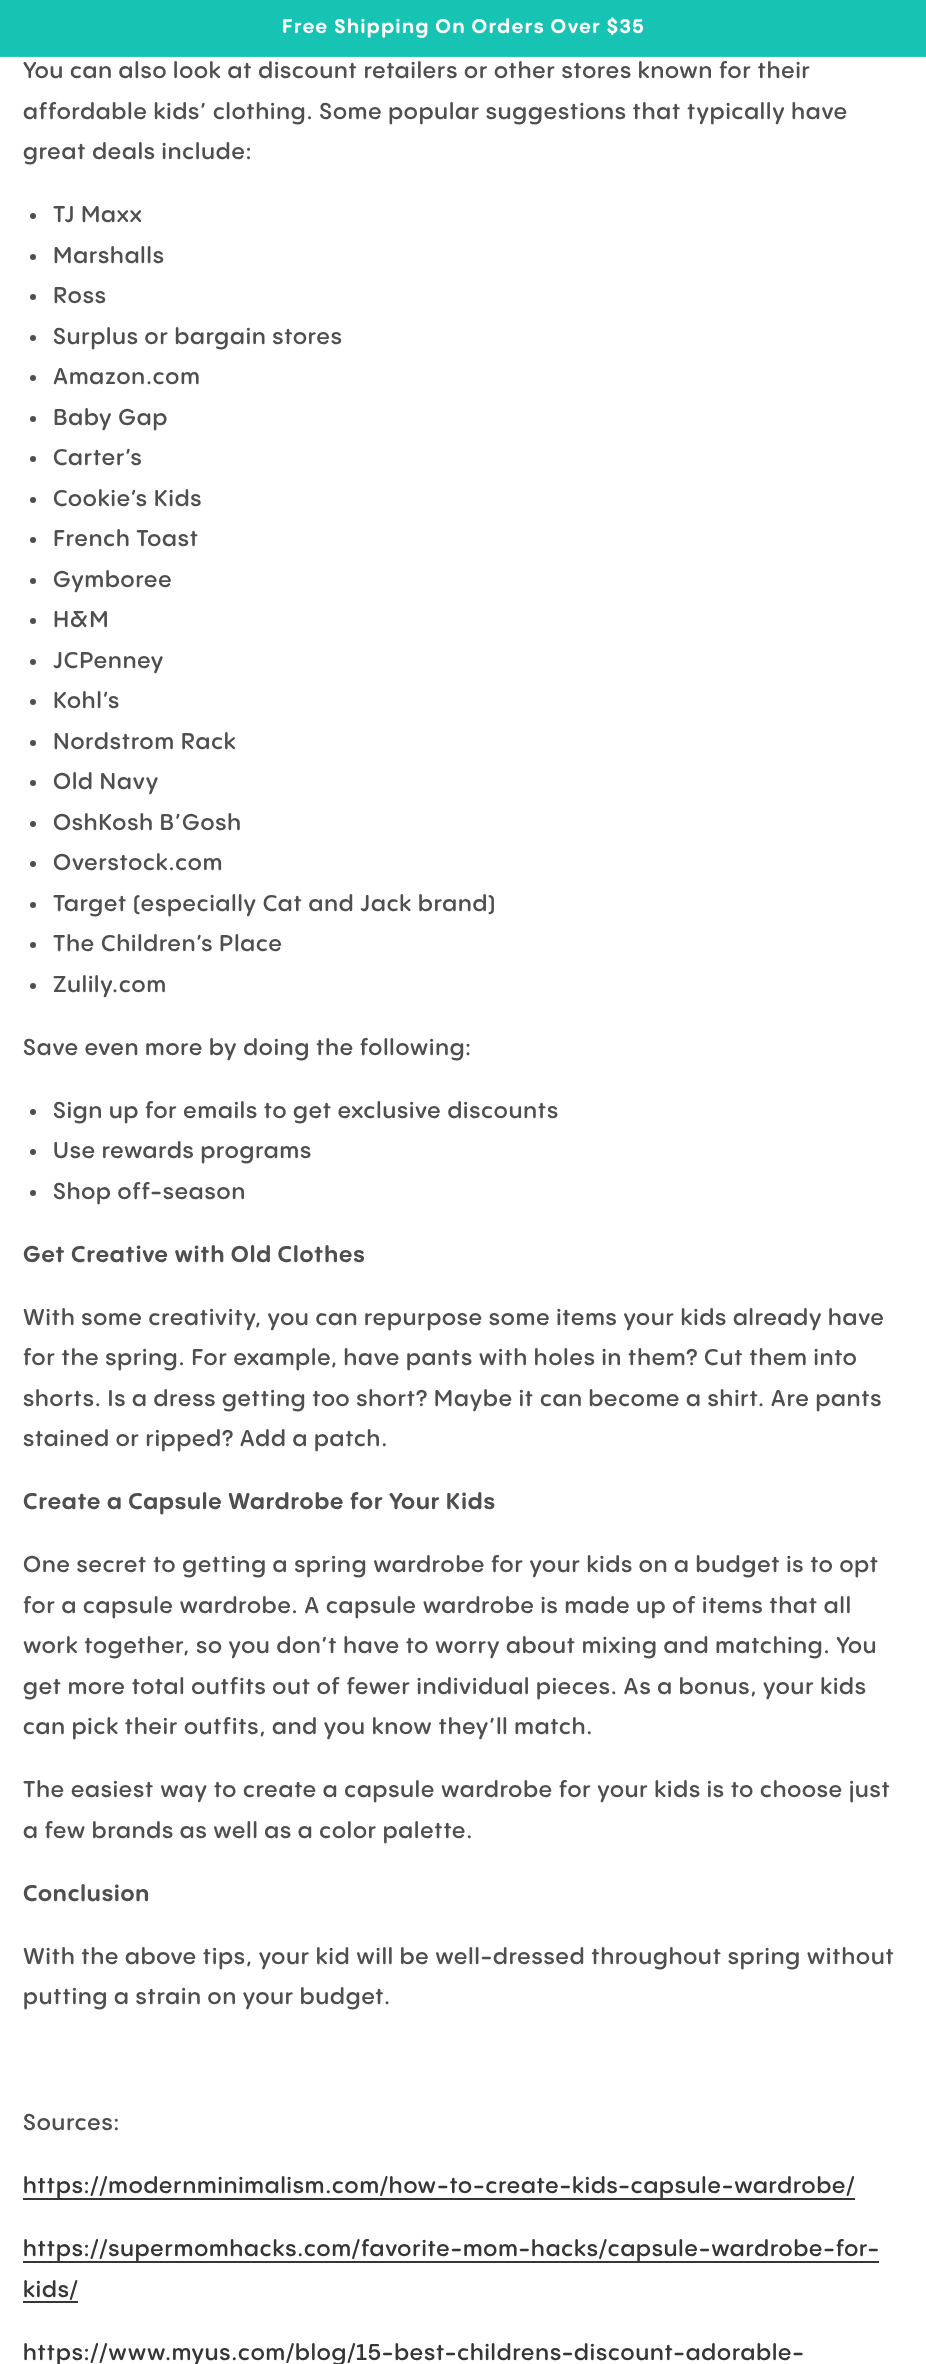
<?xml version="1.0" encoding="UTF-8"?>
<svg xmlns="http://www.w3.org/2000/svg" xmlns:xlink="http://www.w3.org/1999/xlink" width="926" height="2364">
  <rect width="100%" height="100%" fill="#ffffff" />
  <rect width="926" height="56" fill="#17c3b2" />
  <rect y="56" width="926" height="1" fill="#2ac8b8" />
  <circle cx="33" cy="216" r="3" fill="#4f4f50" />
  <circle cx="33" cy="257" r="3" fill="#4f4f50" />
  <circle cx="33" cy="297" r="3" fill="#4f4f50" />
  <circle cx="33" cy="338" r="3" fill="#4f4f50" />
  <circle cx="33" cy="378" r="3" fill="#4f4f50" />
  <circle cx="33" cy="419" r="3" fill="#4f4f50" />
  <circle cx="33" cy="459" r="3" fill="#4f4f50" />
  <circle cx="33" cy="500" r="3" fill="#4f4f50" />
  <circle cx="33" cy="540" r="3" fill="#4f4f50" />
  <circle cx="33" cy="581" r="3" fill="#4f4f50" />
  <circle cx="33" cy="621" r="3" fill="#4f4f50" />
  <circle cx="33" cy="662" r="3" fill="#4f4f50" />
  <circle cx="33" cy="702" r="3" fill="#4f4f50" />
  <circle cx="33" cy="743" r="3" fill="#4f4f50" />
  <circle cx="33" cy="783" r="3" fill="#4f4f50" />
  <circle cx="33" cy="824" r="3" fill="#4f4f50" />
  <circle cx="33" cy="864" r="3" fill="#4f4f50" />
  <circle cx="33" cy="905" r="3" fill="#4f4f50" />
  <circle cx="33" cy="945" r="3" fill="#4f4f50" />
  <circle cx="33" cy="986" r="3" fill="#4f4f50" />
  <circle cx="33" cy="1112" r="3" fill="#4f4f50" />
  <circle cx="33" cy="1152" r="3" fill="#4f4f50" />
  <circle cx="33" cy="1193" r="3" fill="#4f4f50" />
  <rect x="23" y="2198" width="832" height="2" fill="#363636" />
  <rect x="23" y="2261" width="856" height="2" fill="#363636" />
  <rect x="23" y="2301" width="55" height="2" fill="#363636" />
  <text x="282" y="33" style="font-family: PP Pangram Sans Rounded; font-size: 19.5px; font-weight: bold; letter-spacing: 1.5px; fill: #ffffff">Free Shipping On Orders Over $35</text>
  <text x="23" y="78" style="font-family: PP Pangram Sans Rounded; font-size: 22.5px; font-weight: 600; letter-spacing: 0.9px; fill: #4f4f50">You can also look at discount retailers or other stores known for their</text>
  <text x="23" y="119" style="font-family: PP Pangram Sans Rounded; font-size: 22.5px; font-weight: 600; letter-spacing: 0.9px; fill: #4f4f50">affordable kids’ clothing. Some popular suggestions that typically have</text>
  <text x="23" y="159" style="font-family: PP Pangram Sans Rounded; font-size: 22.5px; font-weight: 600; letter-spacing: 0.9px; fill: #4f4f50">great deals include:</text>
  <text x="53" y="222" style="font-family: PP Pangram Sans Rounded; font-size: 22.5px; font-weight: 600; letter-spacing: 0.9px; fill: #4f4f50">TJ Maxx</text>
  <text x="53" y="263" style="font-family: PP Pangram Sans Rounded; font-size: 22.5px; font-weight: 600; letter-spacing: 0.9px; fill: #4f4f50">Marshalls</text>
  <text x="53" y="303" style="font-family: PP Pangram Sans Rounded; font-size: 22.5px; font-weight: 600; letter-spacing: 0.9px; fill: #4f4f50">Ross</text>
  <text x="53" y="344" style="font-family: PP Pangram Sans Rounded; font-size: 22.5px; font-weight: 600; letter-spacing: 0.9px; fill: #4f4f50">Surplus or bargain stores</text>
  <text x="53" y="384" style="font-family: PP Pangram Sans Rounded; font-size: 22.5px; font-weight: 600; letter-spacing: 0.9px; fill: #4f4f50">Amazon.com</text>
  <text x="53" y="425" style="font-family: PP Pangram Sans Rounded; font-size: 22.5px; font-weight: 600; letter-spacing: 0.9px; fill: #4f4f50">Baby Gap</text>
  <text x="53" y="465" style="font-family: PP Pangram Sans Rounded; font-size: 22.5px; font-weight: 600; letter-spacing: 0.9px; fill: #4f4f50">Carter’s</text>
  <text x="53" y="506" style="font-family: PP Pangram Sans Rounded; font-size: 22.5px; font-weight: 600; letter-spacing: 0.9px; fill: #4f4f50">Cookie’s Kids</text>
  <text x="53" y="546" style="font-family: PP Pangram Sans Rounded; font-size: 22.5px; font-weight: 600; letter-spacing: 0.9px; fill: #4f4f50">French Toast</text>
  <text x="53" y="587" style="font-family: PP Pangram Sans Rounded; font-size: 22.5px; font-weight: 600; letter-spacing: 0.9px; fill: #4f4f50">Gymboree</text>
  <text x="53" y="627" style="font-family: PP Pangram Sans Rounded; font-size: 22.5px; font-weight: 600; letter-spacing: 0.9px; fill: #4f4f50">H&amp;M</text>
  <text x="53" y="668" style="font-family: PP Pangram Sans Rounded; font-size: 22.5px; font-weight: 600; letter-spacing: 0.9px; fill: #4f4f50">JCPenney</text>
  <text x="53" y="708" style="font-family: PP Pangram Sans Rounded; font-size: 22.5px; font-weight: 600; letter-spacing: 0.9px; fill: #4f4f50">Kohl’s</text>
  <text x="53" y="749" style="font-family: PP Pangram Sans Rounded; font-size: 22.5px; font-weight: 600; letter-spacing: 0.9px; fill: #4f4f50">Nordstrom Rack</text>
  <text x="53" y="789" style="font-family: PP Pangram Sans Rounded; font-size: 22.5px; font-weight: 600; letter-spacing: 0.9px; fill: #4f4f50">Old Navy</text>
  <text x="53" y="830" style="font-family: PP Pangram Sans Rounded; font-size: 22.5px; font-weight: 600; letter-spacing: 0.9px; fill: #4f4f50">OshKosh B’Gosh</text>
  <text x="53" y="870" style="font-family: PP Pangram Sans Rounded; font-size: 22.5px; font-weight: 600; letter-spacing: 0.9px; fill: #4f4f50">Overstock.com</text>
  <text x="53" y="911" style="font-family: PP Pangram Sans Rounded; font-size: 22.5px; font-weight: 600; letter-spacing: 0.9px; fill: #4f4f50">Target (especially Cat and Jack brand)</text>
  <text x="53" y="951" style="font-family: PP Pangram Sans Rounded; font-size: 22.5px; font-weight: 600; letter-spacing: 0.9px; fill: #4f4f50">The Children’s Place</text>
  <text x="53" y="992" style="font-family: PP Pangram Sans Rounded; font-size: 22.5px; font-weight: 600; letter-spacing: 0.9px; fill: #4f4f50">Zulily.com</text>
  <text x="23" y="1055" style="font-family: PP Pangram Sans Rounded; font-size: 22.5px; font-weight: 600; letter-spacing: 0.9px; fill: #4f4f50">Save even more by doing the following:</text>
  <text x="53" y="1118" style="font-family: PP Pangram Sans Rounded; font-size: 22.5px; font-weight: 600; letter-spacing: 0.9px; fill: #4f4f50">Sign up for emails to get exclusive discounts</text>
  <text x="53" y="1158" style="font-family: PP Pangram Sans Rounded; font-size: 22.5px; font-weight: 600; letter-spacing: 0.9px; fill: #4f4f50">Use rewards programs</text>
  <text x="53" y="1199" style="font-family: PP Pangram Sans Rounded; font-size: 22.5px; font-weight: 600; letter-spacing: 0.9px; fill: #4f4f50">Shop off-season</text>
  <text x="23" y="1262" style="font-family: PP Pangram Sans Rounded; font-size: 22.5px; font-weight: bold; letter-spacing: 0.9px; fill: #4f4f50">Get Creative with Old Clothes</text>
  <text x="23" y="1325" style="font-family: PP Pangram Sans Rounded; font-size: 22.5px; font-weight: 600; letter-spacing: 0.9px; fill: #4f4f50">With some creativity, you can repurpose some items your kids already have</text>
  <text x="23" y="1365" style="font-family: PP Pangram Sans Rounded; font-size: 22.5px; font-weight: 600; letter-spacing: 0.9px; fill: #4f4f50">for the spring. For example, have pants with holes in them? Cut them into</text>
  <text x="23" y="1406" style="font-family: PP Pangram Sans Rounded; font-size: 22.5px; font-weight: 600; letter-spacing: 0.9px; fill: #4f4f50">shorts. Is a dress getting too short? Maybe it can become a shirt. Are pants</text>
  <text x="23" y="1446" style="font-family: PP Pangram Sans Rounded; font-size: 22.5px; font-weight: 600; letter-spacing: 0.9px; fill: #4f4f50">stained or ripped? Add a patch.</text>
  <text x="23" y="1509" style="font-family: PP Pangram Sans Rounded; font-size: 22.5px; font-weight: bold; letter-spacing: 0.9px; fill: #4f4f50">Create a Capsule Wardrobe for Your Kids</text>
  <text x="23" y="1572" style="font-family: PP Pangram Sans Rounded; font-size: 22.5px; font-weight: 600; letter-spacing: 0.9px; fill: #4f4f50">One secret to getting a spring wardrobe for your kids on a budget is to opt</text>
  <text x="23" y="1613" style="font-family: PP Pangram Sans Rounded; font-size: 22.5px; font-weight: 600; letter-spacing: 0.9px; fill: #4f4f50">for a capsule wardrobe. A capsule wardrobe is made up of items that all</text>
  <text x="23" y="1653" style="font-family: PP Pangram Sans Rounded; font-size: 22.5px; font-weight: 600; letter-spacing: 0.9px; fill: #4f4f50">work together, so you don’t have to worry about mixing and matching. You</text>
  <text x="23" y="1694" style="font-family: PP Pangram Sans Rounded; font-size: 22.5px; font-weight: 600; letter-spacing: 0.9px; fill: #4f4f50">get more total outfits out of fewer individual pieces. As a bonus, your kids</text>
  <text x="23" y="1734" style="font-family: PP Pangram Sans Rounded; font-size: 22.5px; font-weight: 600; letter-spacing: 0.9px; fill: #4f4f50">can pick their outfits, and you know they’ll match.</text>
  <text x="23" y="1797" style="font-family: PP Pangram Sans Rounded; font-size: 22.5px; font-weight: 600; letter-spacing: 0.9px; fill: #4f4f50">The easiest way to create a capsule wardrobe for your kids is to choose just</text>
  <text x="23" y="1838" style="font-family: PP Pangram Sans Rounded; font-size: 22.5px; font-weight: 600; letter-spacing: 0.9px; fill: #4f4f50">a few brands as well as a color palette.</text>
  <text x="23" y="1901" style="font-family: PP Pangram Sans Rounded; font-size: 22.5px; font-weight: bold; letter-spacing: 0.9px; fill: #4f4f50">Conclusion</text>
  <text x="23" y="1964" style="font-family: PP Pangram Sans Rounded; font-size: 22.5px; font-weight: 600; letter-spacing: 0.9px; fill: #4f4f50">With the above tips, your kid will be well-dressed throughout spring without</text>
  <text x="23" y="2004" style="font-family: PP Pangram Sans Rounded; font-size: 22.5px; font-weight: 600; letter-spacing: 0.9px; fill: #4f4f50">putting a strain on your budget.</text>
  <text x="23" y="2130" style="font-family: PP Pangram Sans Rounded; font-size: 22.5px; font-weight: 600; letter-spacing: 0.9px; fill: #4f4f50">Sources:</text>
  <text x="23" y="2193" style="font-family: PP Pangram Sans Rounded; font-size: 22.5px; font-weight: 600; letter-spacing: 0.9px; fill: #363636">https://modernminimalism.com/how-to-create-kids-capsule-wardrobe/</text>
  <text x="23" y="2256" style="font-family: PP Pangram Sans Rounded; font-size: 22.5px; font-weight: 600; letter-spacing: 0.9px; fill: #363636">https://supermomhacks.com/favorite-mom-hacks/capsule-wardrobe-for-</text>
  <text x="23" y="2297" style="font-family: PP Pangram Sans Rounded; font-size: 22.5px; font-weight: 600; letter-spacing: 0.9px; fill: #363636">kids/</text>
  <text x="23" y="2360" style="font-family: PP Pangram Sans Rounded; font-size: 22.5px; font-weight: 600; letter-spacing: 0.9px; fill: #363636">https://www.myus.com/blog/15-best-childrens-discount-adorable-</text>
</svg>
